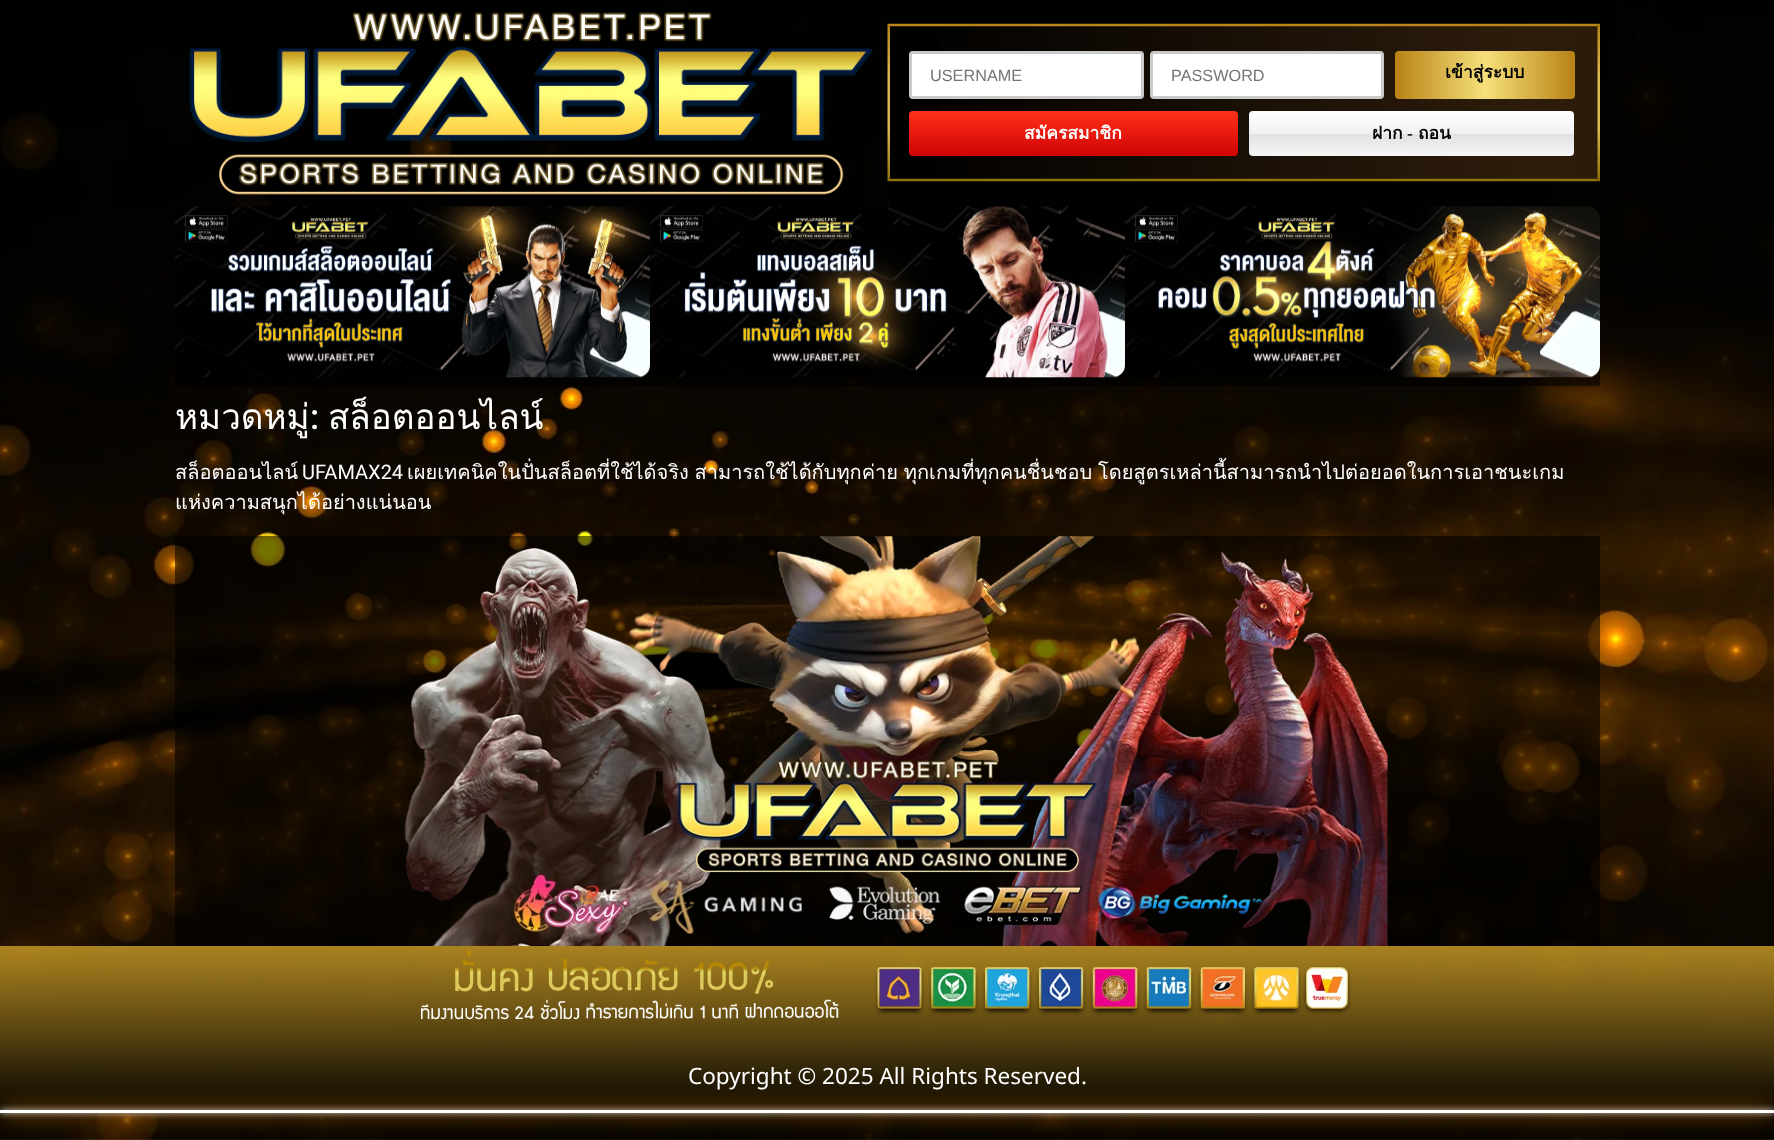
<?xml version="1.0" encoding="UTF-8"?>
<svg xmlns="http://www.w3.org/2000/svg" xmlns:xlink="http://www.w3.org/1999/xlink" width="1774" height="1140">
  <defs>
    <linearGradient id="g1" gradientUnits="userSpaceOnUse" x1="890" y1="103" x2="1598" y2="102"><stop offset="0" stop-color="#000000" /><stop offset="0.9" stop-color="#2d1c0b" /><stop offset="1" stop-color="#2b1b08" /></linearGradient>
    <linearGradient id="g2" gradientUnits="userSpaceOnUse" x1="1575" y1="75" x2="1395" y2="75"><stop offset="0" stop-color="#b88215" /><stop offset="0.5" stop-color="#f6e07b" /><stop offset="1" stop-color="#b88215" /></linearGradient>
    <linearGradient id="g3" gradientUnits="userSpaceOnUse" x1="1073" y1="111" x2="1073" y2="156"><stop offset="0" stop-color="#ff3019" /><stop offset="1" stop-color="#cf0404" /></linearGradient>
    <linearGradient id="g4" gradientUnits="userSpaceOnUse" x1="1411" y1="111" x2="1411" y2="156"><stop offset="0" stop-color="#ffffff" /><stop offset="0.5" stop-color="#f1f1f1" /><stop offset="0.51" stop-color="#e1e1e1" /><stop offset="1" stop-color="#f6f6f6" /></linearGradient>
    <linearGradient id="g5" gradientUnits="userSpaceOnUse" x1="888" y1="946" x2="888" y2="1113"><stop offset="0" stop-color="#c09424" stop-opacity="0.87" /><stop offset="1" stop-color="#000000" /></linearGradient>
  </defs>
  <rect width="100%" height="100%" fill="#ffffff" />
  <image x="0" y="0" width="1774" height="1140" xlink:href="image1.png" />
  <rect x="230" width="636" height="206" fill="#000000" fill-opacity="0.55" />
  <image x="189" y="12" width="684" height="183" xlink:href="image2.png" />
  <rect x="889" y="41" width="668" height="165" fill="#000000" fill-opacity="0.55" />
  <rect x="939" y="24" width="659" height="157" fill="url(#g1)" />
  <image x="887" y="23" width="713" height="159" xlink:href="image3.png" />
  <rect x="910.5" y="52.5" width="232" height="45" rx="2.5" fill="#ffffff" stroke="#cacaca" stroke-width="3" />
  <rect x="1151.5" y="52.5" width="231" height="45" rx="2.5" fill="#ffffff" stroke="#cacaca" stroke-width="3" />
  <rect x="1395" y="51" width="180" height="48" rx="4" fill="url(#g2)" />
  <rect x="909" y="111" width="329" height="45" rx="4" fill="url(#g3)" />
  <rect x="1249" y="111" width="325" height="45" rx="4" fill="url(#g4)" />
  <rect x="175" y="206" width="1425" height="180" fill="#000000" fill-opacity="0.55" />
  <image x="175" y="206" width="475" height="172" xlink:href="image4.png" />
  <image x="650" y="206" width="475" height="172" xlink:href="image5.png" />
  <image x="1125" y="206" width="475" height="172" xlink:href="image6.png" />
  <rect x="175" y="536" width="1425" height="410" fill="#000000" fill-opacity="0.55" />
  <image x="404" y="536" width="984" height="411" xlink:href="image7.png" />
  <rect y="946" width="1774" height="164" fill="url(#g5)" />
  <rect y="1110" width="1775" height="3" fill="#ff9900" filter="blur(15.5px)" />
  <rect y="1110" width="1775" height="3" fill="#ff8800" filter="blur(9.5px)" />
  <rect y="1110" width="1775" height="3" fill="#ffffff" filter="blur(3px)" />
  <rect y="1110" width="1774" height="3" fill="#ffffff" />
  <image x="421" y="949" width="930" height="71" xlink:href="image8.png" />
  <text x="930" y="81" style="font-family: Liberation Sans; font-size: 16.25px; fill: #757575">USERNAME</text>
  <text x="1171" y="81" style="font-family: Liberation Sans; font-size: 16.25px; fill: #757575">PASSWORD</text>
  <text x="1445" y="78" style="font-family: Loma; font-size: 17.5px; font-weight: bold; fill: #000000">เข้าสู่ระบบ</text>
  <text x="1024" y="139" style="font-family: Loma; font-size: 17.5px; font-weight: bold; fill: #ffffff">สมัครสมาชิก</text>
  <text x="1372" y="139" style="font-family: Loma; font-size: 17.5px; font-weight: bold; fill: #000000">ฝาก</text>
  <text x="1407" y="139" style="font-family: Liberation Serif; font-size: 17.5px; font-weight: bold; fill: #000000">-</text>
  <text x="1418" y="139" style="font-family: Loma; font-size: 17.5px; font-weight: bold; fill: #000000">ถอน</text>
  <text x="175" y="429" style="font-family: Loma; font-size: 35px; fill: #ffffff">หมวดหมู่</text>
  <text x="310" y="429" style="font-family: Roboto; font-size: 35px; font-weight: 500; fill: #ffffff">:</text>
  <text x="328" y="429" style="font-family: Loma; font-size: 35px; fill: #ffffff">สล็อตออนไลน์</text>
  <text x="175" y="479" style="font-family: Loma; font-size: 20px; fill: #ffffff">สล็อตออนไลน์</text>
  <text x="302" y="479" style="font-family: Roboto; font-size: 20px; fill: #ffffff">UFAMAX24</text>
  <text x="407" y="479" word-spacing="-1" style="font-family: Loma; font-size: 20px; fill: #ffffff">เผยเทคนิคในปั่นสล็อตที่ใช้ได้จริง สามารถใช้ได้กับทุกค่าย ทุกเกมที่ทุกคนชื่นชอบ โดยสูตรเหล่านี้สามารถนำไปต่อยอดในการเอาชนะเกม</text>
  <text x="175" y="509" style="font-family: Loma; font-size: 20px; fill: #ffffff">แห่งความสนุกได้อย่างแน่นอน</text>
  <text x="688" y="1084" style="font-family: Noto Sans Thai; font-size: 22.5px; fill: #ffffff">Copyright © 2025 All Rights Reserved.</text>
</svg>
